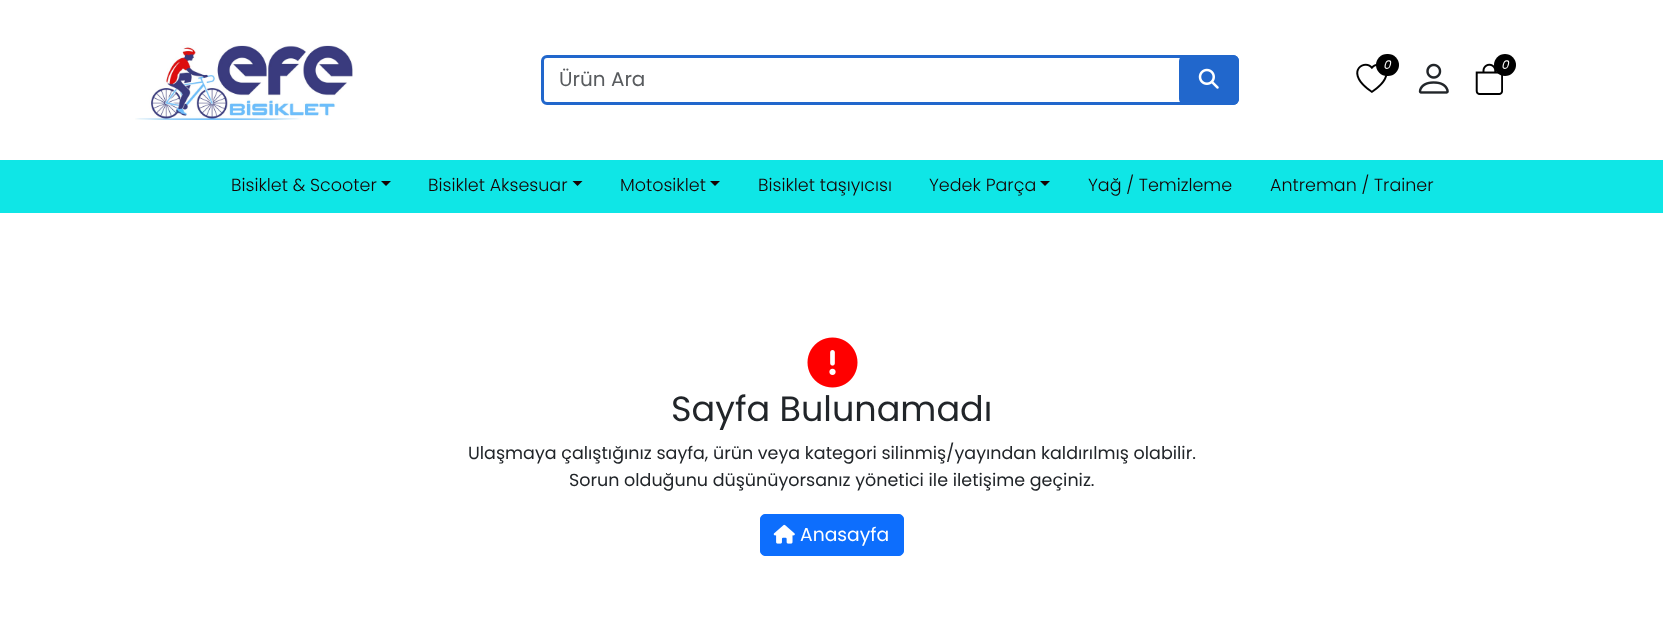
<?xml version="1.0" encoding="UTF-8"?>
<svg xmlns="http://www.w3.org/2000/svg" xmlns:xlink="http://www.w3.org/1999/xlink" width="1663" height="633">
  <rect width="100%" height="100%" fill="#ffffff" />
  <image x="135" y="45" width="218" height="75" xlink:href="image1.png" />
  <image x="1356" y="63" width="31" height="30" xlink:href="image2.png" />
  <rect x="1376" y="54" width="23" height="22" rx="11" fill="#000000" />
  <image x="1418" y="63" width="31" height="31" xlink:href="image3.png" />
  <image x="1475" y="63" width="28" height="32" xlink:href="image4.png" />
  <circle cx="1505" cy="65" r="11" fill="#000000" />
  <rect x="542.5" y="56.5" width="695" height="47" rx="4.5" fill="none" stroke="#2167cc" stroke-width="3" />
  <rect x="1179" y="55" width="60" height="50" rx="6" fill="#2167cc" />
  <image x="1198" y="68" width="21" height="21" xlink:href="image5.png" />
  <rect y="160" width="1663" height="53" fill="#0fe6e6" />
  <path d="M 381 181 h 10 l -5 5 z" fill="#170202" />
  <path d="M 572.5 181 h 10 l -5 5 z" fill="#170202" />
  <path d="M 710 181 h 10 l -5 5 z" fill="#170202" />
  <path d="M 1040 181 h 10 l -5 5 z" fill="#170202" />
  <image x="807" y="337" width="51" height="51" xlink:href="image6.png" />
  <rect x="760.5" y="514.5" width="143" height="41" rx="4.5" fill="#0d6efd" stroke="#0d6efd" />
  <image x="773" y="524" width="22" height="20" xlink:href="image7.png" />
  <text x="1383" y="69" style="font-family: Poppins; font-size: 12px; font-style: italic; fill: #ffffff">0</text>
  <text x="1501" y="69" style="font-family: Poppins; font-size: 12px; font-style: italic; fill: #ffffff">0</text>
  <text x="559" y="86" style="font-family: Poppins; font-size: 20px; fill: #595c5f">Ürün Ara</text>
  <text x="231" y="191" style="font-family: Poppins; font-size: 17.5px; font-weight: 300; fill: #170202">Bisiklet &amp; Scooter</text>
  <text x="428" y="191" style="font-family: Poppins; font-size: 17.5px; font-weight: 300; fill: #170202">Bisiklet Aksesuar</text>
  <text x="620" y="191" style="font-family: Poppins; font-size: 17.5px; font-weight: 300; fill: #170202">Motosiklet</text>
  <text x="758" y="191" style="font-family: Poppins; font-size: 17.5px; font-weight: 300; fill: #170202">Bisiklet taşıyıcısı</text>
  <text x="929" y="191" style="font-family: Poppins; font-size: 17.5px; font-weight: 300; fill: #170202">Yedek Parça</text>
  <text x="1088" y="191" style="font-family: Poppins; font-size: 17.5px; font-weight: 300; fill: #170202">Yağ / Temizleme</text>
  <text x="1270" y="191" style="font-family: Poppins; font-size: 17.5px; font-weight: 300; fill: #170202">Antreman / Trainer</text>
  <text x="671" y="421" style="font-family: Poppins; font-size: 35px; fill: #212529">Sayfa Bulunamadı</text>
  <text x="468" y="459" style="font-family: Poppins; font-size: 17.5px; fill: #212529">Ulaşmaya çalıştığınız sayfa, ürün veya kategori silinmiş/yayından kaldırılmış olabilir.</text>
  <text x="569" y="486" style="font-family: Poppins; font-size: 17.5px; fill: #212529">Sorun olduğunu düşünüyorsanız yönetici ile iletişime geçiniz.</text>
  <text x="800" y="541" style="font-family: Poppins; font-size: 18.75px; fill: #ffffff">Anasayfa</text>
</svg>
